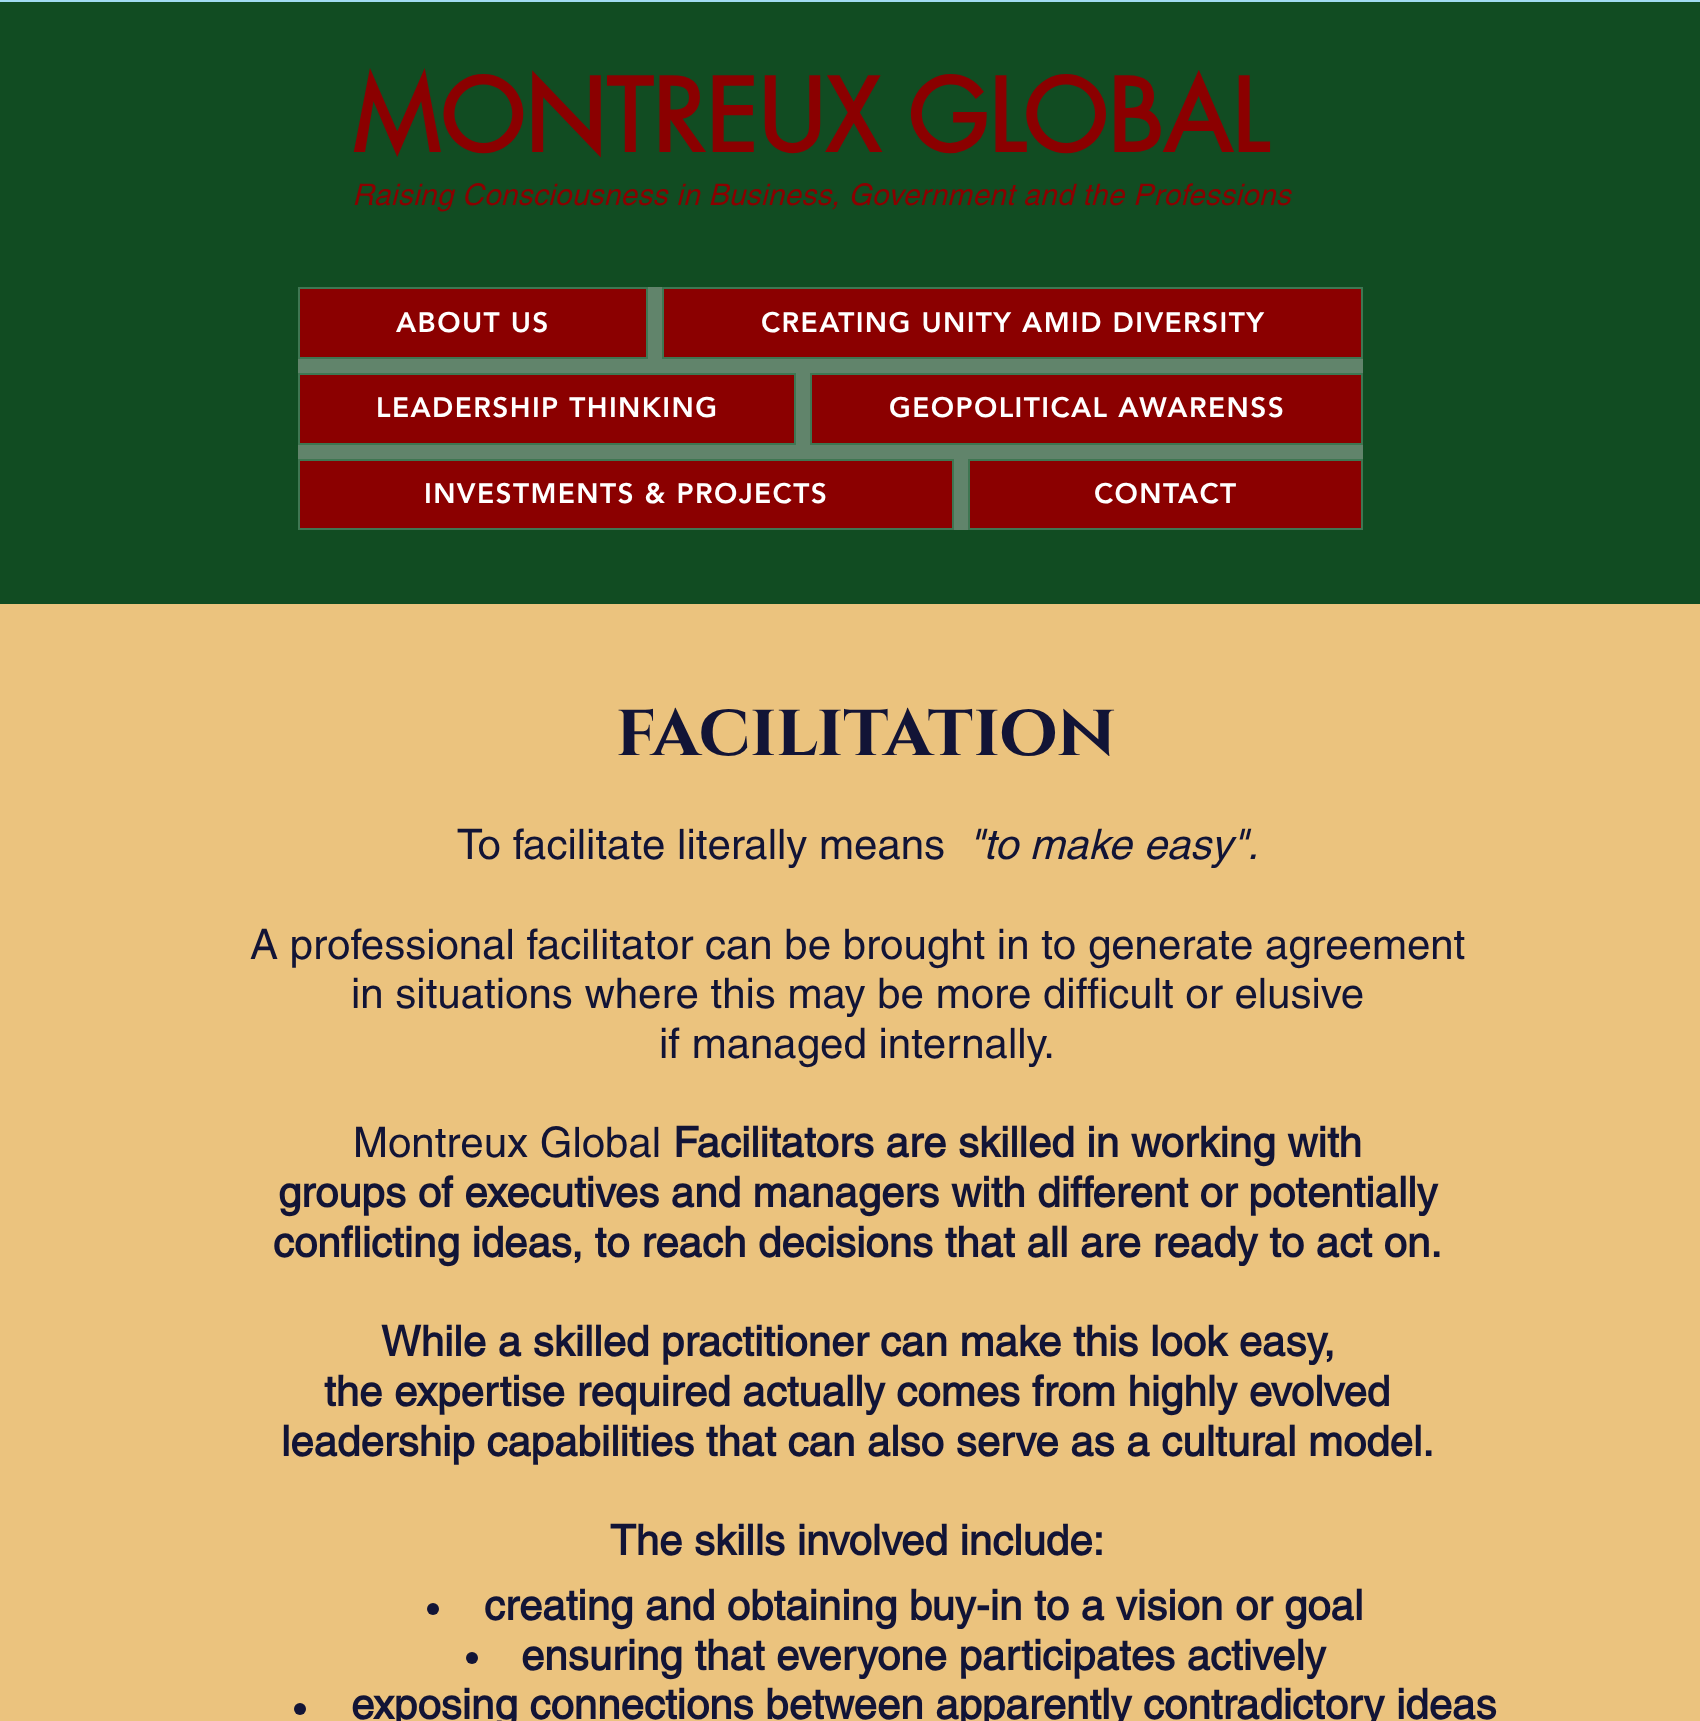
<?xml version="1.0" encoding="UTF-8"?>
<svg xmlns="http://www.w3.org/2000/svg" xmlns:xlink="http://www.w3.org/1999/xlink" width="1700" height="1721">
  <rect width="100%" height="100%" fill="#114c22" />
  <rect width="1700" height="2" fill="#a1dcf2" />
  <rect x="298" y="287" width="1065" height="243" fill="#61846b" />
  <rect x="299" y="288" width="348" height="70" fill="#8b0000" stroke="#3f7652" stroke-width="2" />
  <rect x="663" y="288" width="699" height="70" fill="#8b0000" stroke="#3f7652" stroke-width="2" />
  <rect x="299" y="374" width="496" height="70" fill="#8b0000" stroke="#3f7652" stroke-width="2" />
  <rect x="811" y="374" width="551" height="70" fill="#8b0000" stroke="#3f7652" stroke-width="2" />
  <rect x="299" y="460" width="654" height="69" fill="#8b0000" stroke="#3f7652" stroke-width="2" />
  <rect x="969" y="460" width="393" height="69" fill="#8b0000" stroke="#3f7652" stroke-width="2" />
  <rect y="604" width="1700" height="1117" fill="#ebc37e" />
  <circle cx="433" cy="1609" r="6" fill="#121436" />
  <circle cx="472" cy="1658" r="6" fill="#121436" />
  <circle cx="300" cy="1709" r="6" fill="#121436" />
  <text x="352" y="152" style="font-family: futura; font-size: 98px; font-weight: bold; fill: #8b0000">MONTREUX GLOBAL</text>
  <text x="352" y="205" style="font-family: helvetica; font-size: 29.75px; font-style: italic; letter-spacing: 0.3px; fill: #8b0000">Raising Consciousness in Business, Government and the Professions</text>
  <text x="396" y="332" style="font-family: 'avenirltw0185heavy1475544'; font-size: 28px; font-weight: 900; letter-spacing: 1.4px; fill: #ffffff">ABOUT US</text>
  <text x="761" y="332" style="font-family: 'avenirltw0185heavy1475544'; font-size: 28px; font-weight: 900; letter-spacing: 1.4px; fill: #ffffff">CREATING UNITY AMID DIVERSITY</text>
  <text x="376" y="417" style="font-family: 'avenirltw0185heavy1475544'; font-size: 28px; font-weight: 900; letter-spacing: 1.4px; fill: #ffffff">LEADERSHIP THINKING</text>
  <text x="889" y="417" style="font-family: 'avenirltw0185heavy1475544'; font-size: 28px; font-weight: 900; letter-spacing: 1.4px; fill: #ffffff">GEOPOLITICAL AWARENSS</text>
  <text x="424" y="503" style="font-family: 'avenirltw0185heavy1475544'; font-size: 28px; font-weight: 900; letter-spacing: 1.4px; fill: #ffffff">INVESTMENTS &amp; PROJECTS</text>
  <text x="1094" y="503" style="font-family: 'avenirltw0185heavy1475544'; font-size: 28px; font-weight: 900; letter-spacing: 1.4px; fill: #ffffff">CONTACT</text>
  <text x="616" y="755" style="font-family: Cinzel; font-size: 75.25px; font-weight: bold; fill: #121436">facilitation</text>
  <text x="457" y="859" style="font-family: helvetica; font-size: 42px; fill: #121436">To facilitate literally means</text>
  <text x="968" y="859" style="font-family: helvetica; font-size: 42px; font-style: italic; fill: #121436">"to make easy".</text>
  <text x="250" y="959" style="font-family: helvetica; font-size: 42px; fill: #121436">A professional facilitator can be brought in to generate agreement</text>
  <text x="351" y="1008" style="font-family: helvetica; font-size: 42px; fill: #121436">in situations where this may be more difficult or elusive</text>
  <text x="659" y="1058" style="font-family: helvetica; font-size: 42px; fill: #121436">if managed internally.</text>
  <text x="353" y="1157" style="font-family: helvetica; font-size: 42px; fill: #121436">Montreux Global</text>
  <text x="673" y="1157" style="font-family: helvetica; font-size: 42px; font-weight: bold; fill: #121436">Facilitators are skilled in working with</text>
  <text x="278" y="1207" style="font-family: helvetica; font-size: 42px; font-weight: bold; fill: #121436">groups of executives and managers with different or potentially</text>
  <text x="273" y="1257" style="font-family: helvetica; font-size: 42px; font-weight: bold; fill: #121436">conflicting ideas, to reach decisions that all are ready to act on.</text>
  <text x="381" y="1356" style="font-family: helvetica; font-size: 42px; font-weight: bold; fill: #121436">While a skilled practitioner can make this look easy,</text>
  <text x="324" y="1406" style="font-family: helvetica; font-size: 42px; font-weight: bold; fill: #121436">the expertise required actually comes from highly evolved</text>
  <text x="281" y="1456" style="font-family: helvetica; font-size: 42px; font-weight: bold; fill: #121436">leadership capabilities that can also serve as a cultural model.</text>
  <text x="610" y="1555" style="font-family: helvetica; font-size: 42px; font-weight: bold; fill: #121436">The skills involved include:</text>
  <text x="484" y="1620" style="font-family: helvetica; font-size: 42px; font-weight: bold; fill: #121436">creating and obtaining buy-in to a vision or goal</text>
  <text x="521" y="1670" style="font-family: helvetica; font-size: 42px; font-weight: bold; fill: #121436">ensuring that everyone participates actively</text>
  <text x="351" y="1719" style="font-family: helvetica; font-size: 42px; font-weight: bold; fill: #121436">exposing connections between apparently contradictory ideas</text>
</svg>
